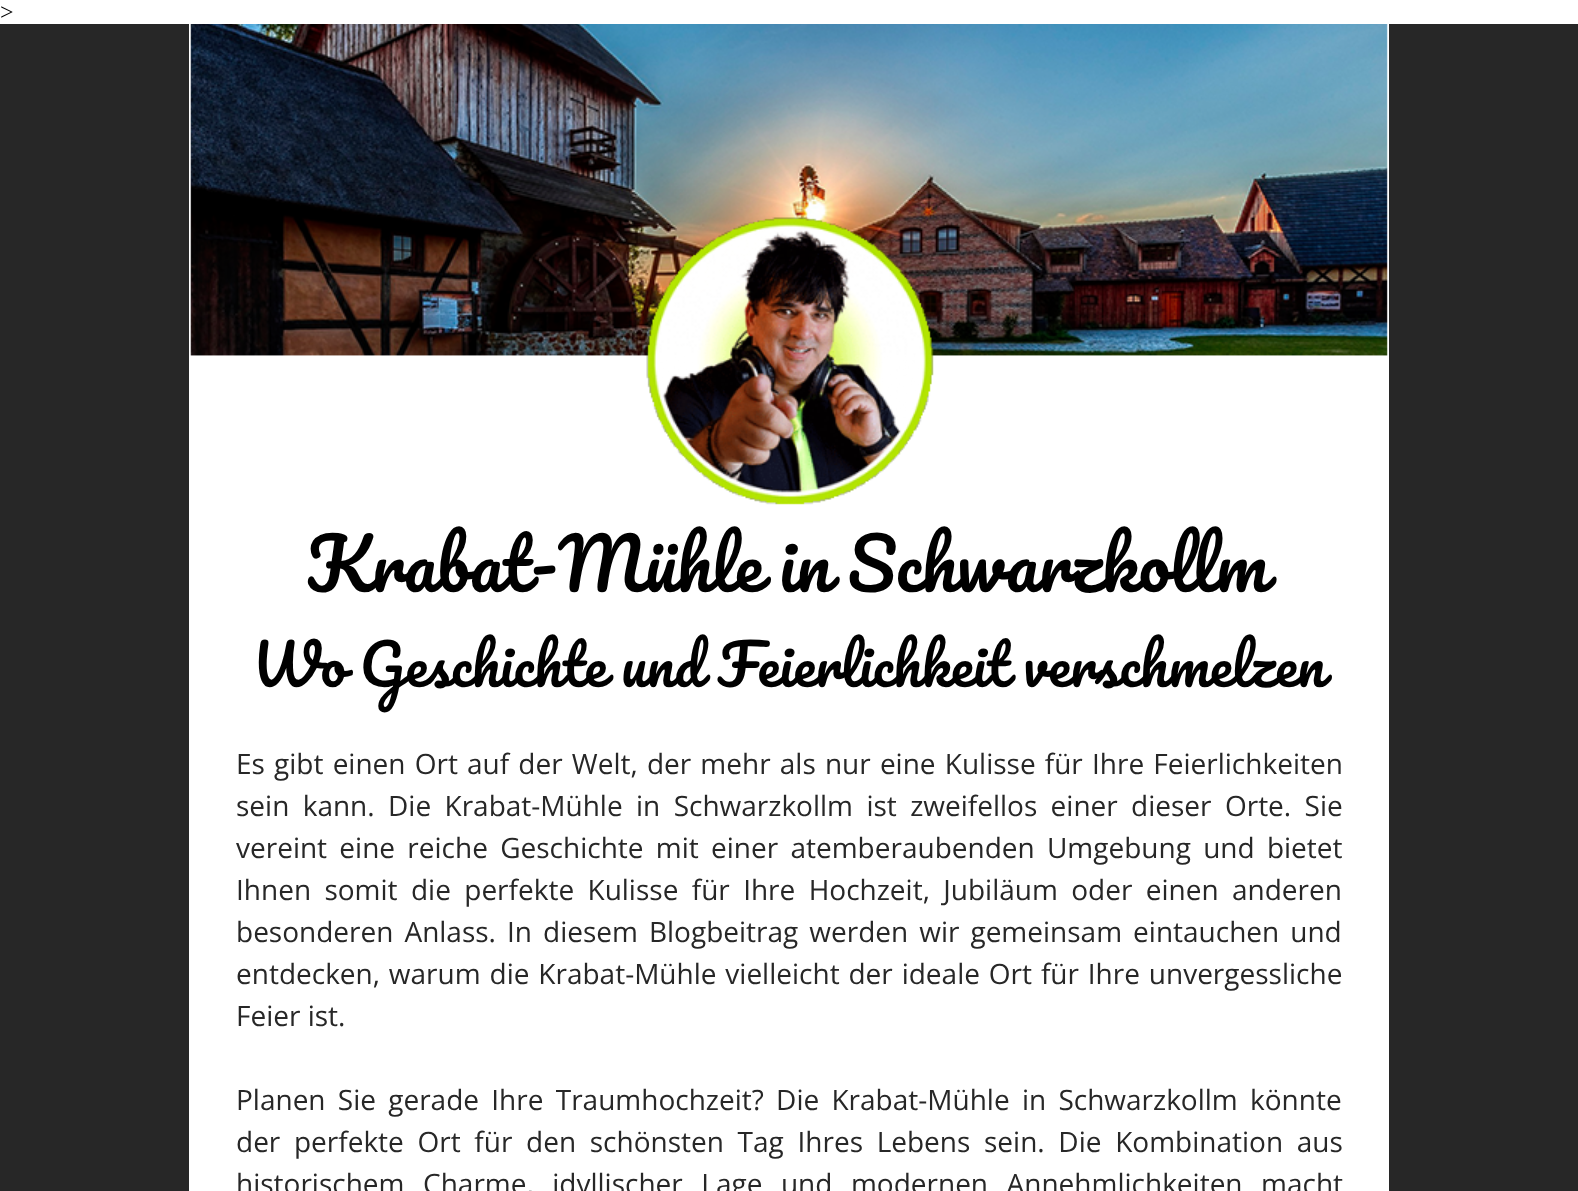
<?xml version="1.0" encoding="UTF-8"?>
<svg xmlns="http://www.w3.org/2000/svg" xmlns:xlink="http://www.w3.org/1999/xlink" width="1578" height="1191">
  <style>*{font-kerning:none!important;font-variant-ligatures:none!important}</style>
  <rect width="100%" height="100%" fill="#ffffff" />
  <rect y="24" width="1578" height="1167" fill="#272727" />
  <rect x="189" y="24" width="1200" height="1167" fill="#ffffff" />
  <image x="190" y="24" width="1198" height="332" xlink:href="image1.png" />
  <image x="646" y="217" width="288" height="288" xlink:href="image2.png" />
  <text x="0" y="20" style="font-family: Liberation Serif; font-size: 24px; fill: #000000">&gt;</text>
  <text x="306" y="592" word-spacing="-2" style="font-family: Pacifico; font-size: 70px; fill: #000000">Krabat-Mühle in Schwarzkollm</text>
  <text x="252" y="687" word-spacing="-0.5" style="font-family: Pacifico; font-size: 56px; fill: #000000">Wo Geschichte und Feierlichkeit verschmelzen</text>
  <text x="236" y="774" word-spacing="1.9" style="font-family: Open Sans; font-size: 28px; fill: #272727">Es gibt einen Ort auf der Welt, der mehr als nur eine Kulisse für Ihre Feierlichkeiten</text>
  <text x="236" y="816" word-spacing="6.1" style="font-family: Open Sans; font-size: 28px; fill: #272727">sein kann. Die Krabat-Mühle in Schwarzkollm ist zweifellos einer dieser Orte. Sie</text>
  <text x="236" y="858" word-spacing="5" style="font-family: Open Sans; font-size: 28px; fill: #272727">vereint eine reiche Geschichte mit einer atemberaubenden Umgebung und bietet</text>
  <text x="236" y="900" word-spacing="6.1" style="font-family: Open Sans; font-size: 28px; fill: #272727">Ihnen somit die perfekte Kulisse für Ihre Hochzeit, Jubiläum oder einen anderen</text>
  <text x="236" y="942" word-spacing="3.75" style="font-family: Open Sans; font-size: 28px; fill: #272727">besonderen Anlass. In diesem Blogbeitrag werden wir gemeinsam eintauchen und</text>
  <text x="236" y="984" word-spacing="1.6" style="font-family: Open Sans; font-size: 28px; fill: #272727">entdecken, warum die Krabat-Mühle vielleicht der ideale Ort für Ihre unvergessliche</text>
  <text x="236" y="1026" style="font-family: Open Sans; font-size: 28px; fill: #272727">Feier ist.</text>
  <text x="236" y="1110" word-spacing="5" style="font-family: Open Sans; font-size: 28px; fill: #272727">Planen Sie gerade Ihre Traumhochzeit? Die Krabat-Mühle in Schwarzkollm könnte</text>
  <text x="236" y="1152" word-spacing="6.4" style="font-family: Open Sans; font-size: 28px; fill: #272727">der perfekte Ort für den schönsten Tag Ihres Lebens sein. Die Kombination aus</text>
  <text x="236" y="1194" word-spacing="11.25" style="font-family: Open Sans; font-size: 28px; fill: #272727">historischem Charme, idyllischer Lage und modernen Annehmlichkeiten macht</text>
</svg>
